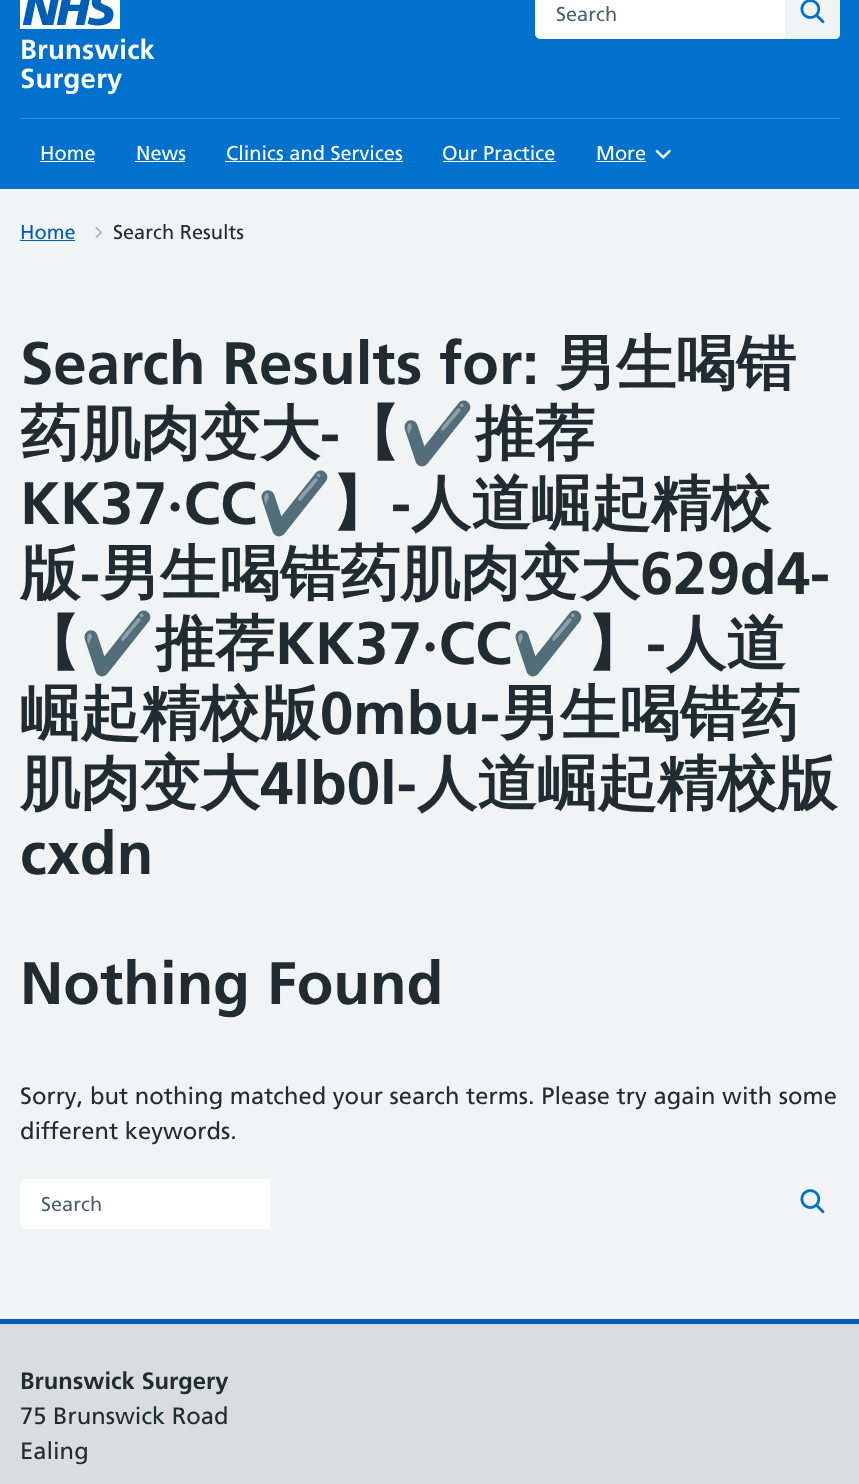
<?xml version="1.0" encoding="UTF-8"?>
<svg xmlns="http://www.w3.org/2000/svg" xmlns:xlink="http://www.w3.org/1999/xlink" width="859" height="1484">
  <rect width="100%" height="100%" fill="#f0f4f5" />
  <rect width="859" height="189" fill="#0072ce" />
  <rect x="20" y="118" width="820" height="1" fill="#338ed8" />
  <path d="M 540 -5.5 h 244.5 v 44 h -244.5 c -2.5 0 -4.5 -2 -4.5 -4.5 v -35 c 0 -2.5 2 -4.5 4.5 -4.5 z" fill="#ffffff" stroke="#ffffff" />
  <path d="M 785 -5 h 50 c 3 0 5 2 5 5 v 34 c 0 3 -2 5 -5 5 h -50 z" fill="#f0f4f5" />
  <image x="800" y="0" width="25" height="24" xlink:href="image1.png" />
  <image x="20" y="0" width="100" height="29" xlink:href="image2.png" />
  <rect x="40" y="161" width="55" height="1" fill="#ffffff" />
  <rect x="135" y="161" width="50" height="1" fill="#ffffff" />
  <rect x="225" y="161" width="178" height="1" fill="#ffffff" />
  <rect x="443" y="161" width="113" height="1" fill="#ffffff" />
  <rect x="596" y="161" width="50" height="1" fill="#ffffff" />
  <image x="655" y="149" width="16" height="10" xlink:href="image3.png" />
  <rect x="20" y="240" width="55" height="1" fill="#005eb8" />
  <image x="95" y="226" width="7" height="12" xlink:href="image4.png" />
  <path d="M 25 1179.5 h 244.5 v 49 h -244.5 c -2.5 0 -4.5 -2 -4.5 -4.5 v -40 c 0 -2.5 2 -4.5 4.5 -4.5 z" fill="#ffffff" stroke="#ffffff" />
  <image x="800" y="1189" width="25" height="25" xlink:href="image5.png" />
  <rect y="1324" width="859" height="160" fill="#d8dde0" />
  <rect y="1319" width="859" height="5" fill="#005eb8" />
  <text x="556" y="21" style="font-family: Frutiger; font-size: 20px; fill: #4c6272">Search</text>
  <text x="20" y="59" style="font-family: Frutiger; font-size: 27.5px; font-weight: bold; letter-spacing: 0.25px; fill: #ffffff">Brunswick</text>
  <text x="20" y="88" style="font-family: Frutiger; font-size: 27.5px; font-weight: bold; letter-spacing: 0.25px; fill: #ffffff">Surgery</text>
  <text x="40" y="160" style="font-family: Frutiger; font-size: 20px; fill: #ffffff">Home</text>
  <text x="136" y="160" style="font-family: Frutiger; font-size: 20px; fill: #ffffff">News</text>
  <text x="226" y="160" style="font-family: Frutiger; font-size: 20px; fill: #ffffff">Clinics and Services</text>
  <text x="442" y="160" style="font-family: Frutiger; font-size: 20px; fill: #ffffff">Our Practice</text>
  <text x="596" y="160" style="font-family: Frutiger; font-size: 20px; fill: #ffffff">More</text>
  <text x="20" y="239" style="font-family: Frutiger; font-size: 20px; fill: #005eb8">Home</text>
  <text x="113" y="239" style="font-family: Frutiger; font-size: 20px; fill: #212b32">Search Results</text>
  <text x="20" y="384" style="font-family: Frutiger; font-size: 60px; font-weight: bold; fill: #212b32">Search Results for:</text>
  <text x="556" y="384" style="font-family: WenQuanYi Zen Hei; font-size: 60px; font-weight: bold; fill: #212b32">男生喝错</text>
  <text x="20" y="454" style="font-family: WenQuanYi Zen Hei; font-size: 60px; font-weight: bold; fill: #212b32">药肌肉变大</text>
  <text x="320" y="454" style="font-family: Frutiger; font-size: 60px; font-weight: bold; fill: #212b32">-</text>
  <text x="340" y="454" style="font-family: WenQuanYi Zen Hei; font-size: 60px; font-weight: bold; fill: #212b32">【</text>
  <text x="400" y="454" style="font-family: Noto Color Emoji; font-size: 60px; font-weight: bold; fill: #212b32">✔️</text>
  <text x="475" y="454" style="font-family: WenQuanYi Zen Hei; font-size: 60px; font-weight: bold; fill: #212b32">推荐</text>
  <text x="20" y="524" style="font-family: Frutiger; font-size: 60px; font-weight: bold; fill: #212b32">KK37·CC</text>
  <text x="257" y="524" style="font-family: Noto Color Emoji; font-size: 60px; font-weight: bold; fill: #212b32">✔️</text>
  <text x="331" y="524" style="font-family: WenQuanYi Zen Hei; font-size: 60px; font-weight: bold; fill: #212b32">】</text>
  <text x="391" y="524" style="font-family: Frutiger; font-size: 60px; font-weight: bold; fill: #212b32">-</text>
  <text x="411" y="524" style="font-family: WenQuanYi Zen Hei; font-size: 60px; font-weight: bold; fill: #212b32">人道崛起精校</text>
  <text x="20" y="594" style="font-family: WenQuanYi Zen Hei; font-size: 60px; font-weight: bold; fill: #212b32">版</text>
  <text x="80" y="594" style="font-family: Frutiger; font-size: 60px; font-weight: bold; fill: #212b32">-</text>
  <text x="100" y="594" style="font-family: WenQuanYi Zen Hei; font-size: 60px; font-weight: bold; fill: #212b32">男生喝错药肌肉变大</text>
  <text x="640" y="594" style="font-family: Frutiger; font-size: 60px; font-weight: bold; fill: #212b32">629d4-</text>
  <text x="20" y="664" style="font-family: WenQuanYi Zen Hei; font-size: 60px; font-weight: bold; fill: #212b32">【</text>
  <text x="80" y="664" style="font-family: Noto Color Emoji; font-size: 60px; font-weight: bold; fill: #212b32">✔️</text>
  <text x="155" y="664" style="font-family: WenQuanYi Zen Hei; font-size: 60px; font-weight: bold; fill: #212b32">推荐</text>
  <text x="275" y="664" style="font-family: Frutiger; font-size: 60px; font-weight: bold; fill: #212b32">KK37·CC</text>
  <text x="511" y="664" style="font-family: Noto Color Emoji; font-size: 60px; font-weight: bold; fill: #212b32">✔️</text>
  <text x="586" y="664" style="font-family: WenQuanYi Zen Hei; font-size: 60px; font-weight: bold; fill: #212b32">】</text>
  <text x="646" y="664" style="font-family: Frutiger; font-size: 60px; font-weight: bold; fill: #212b32">-</text>
  <text x="666" y="664" style="font-family: WenQuanYi Zen Hei; font-size: 60px; font-weight: bold; fill: #212b32">人道</text>
  <text x="20" y="734" style="font-family: WenQuanYi Zen Hei; font-size: 60px; font-weight: bold; fill: #212b32">崛起精校版</text>
  <text x="320" y="734" style="font-family: Frutiger; font-size: 60px; font-weight: bold; fill: #212b32">0mbu-</text>
  <text x="500" y="734" style="font-family: WenQuanYi Zen Hei; font-size: 60px; font-weight: bold; fill: #212b32">男生喝错药</text>
  <text x="20" y="804" style="font-family: WenQuanYi Zen Hei; font-size: 60px; font-weight: bold; fill: #212b32">肌肉变大</text>
  <text x="260" y="804" style="font-family: Frutiger; font-size: 60px; font-weight: bold; fill: #212b32">4lb0l-</text>
  <text x="417" y="804" style="font-family: WenQuanYi Zen Hei; font-size: 60px; font-weight: bold; fill: #212b32">人道崛起精校版</text>
  <text x="20" y="874" style="font-family: Frutiger; font-size: 60px; font-weight: bold; fill: #212b32">cxdn</text>
  <text x="20" y="1004" style="font-family: Frutiger; font-size: 60px; font-weight: bold; fill: #212b32">Nothing Found</text>
  <text x="20" y="1104" style="font-family: Frutiger; font-size: 23.75px; fill: #212b32">Sorry, but nothing matched your search terms. Please try again with some</text>
  <text x="20" y="1139" style="font-family: Frutiger; font-size: 23.75px; fill: #212b32">different keywords.</text>
  <text x="41" y="1211" style="font-family: Frutiger; font-size: 20px; fill: #4c6272">Search</text>
  <text x="20" y="1389" style="font-family: Frutiger; font-size: 23.75px; font-weight: bold; fill: #212b32">Brunswick Surgery</text>
  <text x="20" y="1424" style="font-family: Frutiger; font-size: 23.75px; fill: #212b32">75 Brunswick Road</text>
  <text x="20" y="1459" style="font-family: Frutiger; font-size: 23.75px; fill: #212b32">Ealing</text>
</svg>
